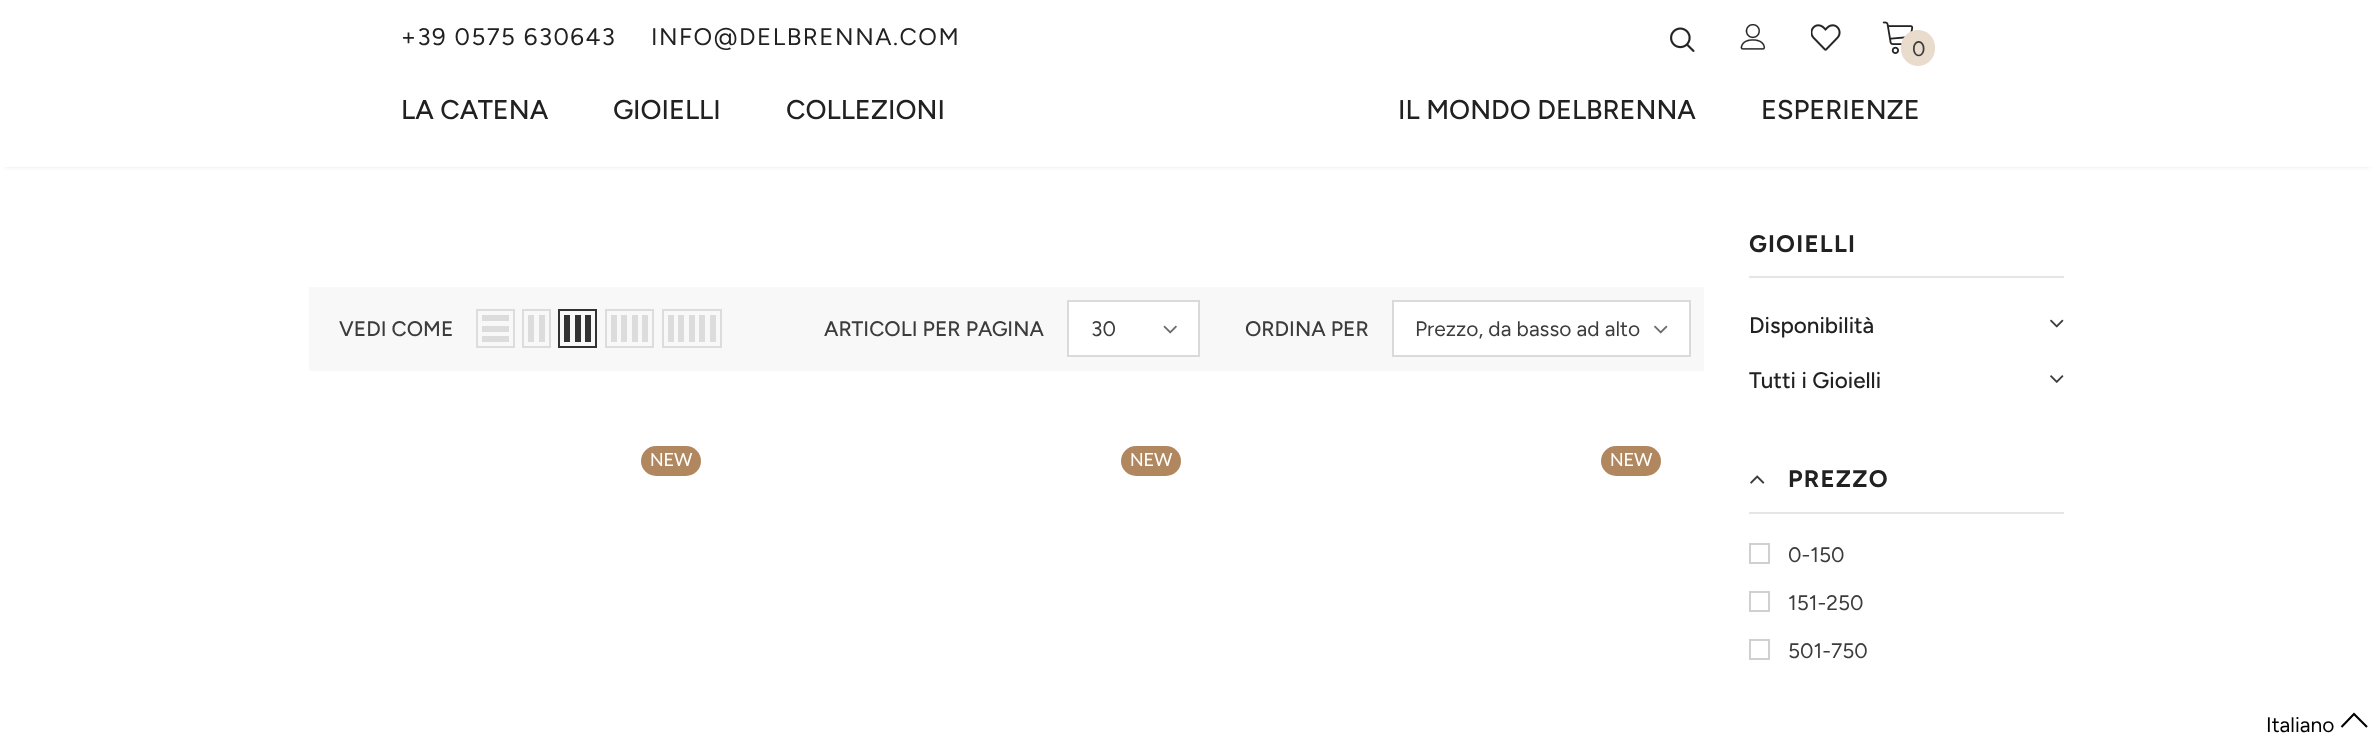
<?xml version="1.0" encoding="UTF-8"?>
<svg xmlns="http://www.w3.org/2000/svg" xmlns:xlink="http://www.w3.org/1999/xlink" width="2372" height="742">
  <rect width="100%" height="100%" fill="#ffffff" />
  <rect x="5" y="9" width="2364" height="158" fill="#000000" fill-opacity="0.1" filter="blur(2px)" />
  <rect x="2" y="6" width="2370" height="161" fill="#ffffff" />
  <image x="1670" y="27" width="25" height="25" xlink:href="image1.png" />
  <image x="1740" y="24" width="26" height="26" xlink:href="image2.png" />
  <image x="1811" y="24" width="30" height="27" xlink:href="image3.png" />
  <image x="1882" y="21" width="32" height="33" xlink:href="image4.png" />
  <rect x="1901" y="30" width="34" height="36" rx="17" fill="#e9dccd" />
  <rect x="309" y="287" width="1395" height="84" fill="#f8f8f8" />
  <rect x="477" y="310" width="37" height="37" fill="none" stroke="#dcdcdc" stroke-width="2" />
  <rect x="482" y="336" width="27" height="6" fill="#dcdcdc" />
  <rect x="482" y="326" width="27" height="6" fill="#dcdcdc" />
  <rect x="482" y="315" width="27" height="6" fill="#dcdcdc" />
  <rect x="523" y="310" width="27" height="37" fill="none" stroke="#dcdcdc" stroke-width="2" />
  <rect x="539" y="315" width="6" height="27" fill="#dcdcdc" />
  <rect x="528" y="315" width="6" height="27" fill="#dcdcdc" />
  <rect x="559" y="310" width="37" height="37" fill="none" stroke="#323232" stroke-width="2" />
  <rect x="585" y="315" width="6" height="27" fill="#323232" />
  <rect x="575" y="315" width="6" height="27" fill="#323232" />
  <rect x="564" y="315" width="6" height="27" fill="#323232" />
  <rect x="606" y="310" width="47" height="37" fill="none" stroke="#dcdcdc" stroke-width="2" />
  <rect x="642" y="315" width="6" height="27" fill="#dcdcdc" />
  <rect x="632" y="315" width="6" height="27" fill="#dcdcdc" />
  <rect x="621" y="315" width="6" height="27" fill="#dcdcdc" />
  <rect x="611" y="315" width="6" height="27" fill="#dcdcdc" />
  <rect x="663" y="310" width="58" height="37" fill="none" stroke="#dcdcdc" stroke-width="2" />
  <rect x="710" y="315" width="6" height="27" fill="#dcdcdc" />
  <rect x="699" y="315" width="6" height="27" fill="#dcdcdc" />
  <rect x="689" y="315" width="6" height="27" fill="#dcdcdc" />
  <rect x="678" y="315" width="6" height="27" fill="#dcdcdc" />
  <rect x="668" y="315" width="6" height="27" fill="#dcdcdc" />
  <rect x="1068" y="301" width="131" height="55" fill="#ffffff" stroke="#dadada" stroke-width="2" />
  <image x="1163" y="325" width="14" height="9" xlink:href="image5.png" />
  <rect x="1393" y="301" width="297" height="55" fill="#ffffff" stroke="#dadada" stroke-width="2" />
  <image x="1654" y="325" width="14" height="9" xlink:href="image6.png" />
  <rect x="641" y="446" width="60" height="30" rx="15" fill="#b18760" />
  <rect x="1121" y="446" width="60" height="30" rx="15" fill="#b18760" />
  <rect x="1601" y="446" width="60" height="30" rx="15" fill="#b18760" />
  <rect x="1749" y="276" width="315" height="2" fill="#e6e6e6" />
  <image x="2050" y="319" width="14" height="9" xlink:href="image7.png" />
  <image x="2050" y="375" width="14" height="8" xlink:href="image8.png" />
  <rect x="1749" y="512" width="315" height="2" fill="#e6e6e6" />
  <image x="1750" y="475" width="15" height="9" xlink:href="image9.png" />
  <rect x="1750" y="544" width="19" height="19" fill="none" stroke="#d0d0d0" stroke-width="2" />
  <rect x="1750" y="592" width="19" height="19" fill="none" stroke="#d0d0d0" stroke-width="2" />
  <rect x="1750" y="640" width="19" height="19" fill="none" stroke="#d0d0d0" stroke-width="2" />
  <path d="M 2367 727 l -13 -13 l -12.5 13" fill="none" stroke="#000000" stroke-width="2.1" />
  <text x="401" y="45" style="font-family: Figtree; font-size: 24px; letter-spacing: 1.5px; fill: #212121">+39 0575 630643</text>
  <text x="651" y="45" style="font-family: Figtree; font-size: 24px; letter-spacing: 1.5px; fill: #212121">INFO@DELBRENNA.COM</text>
  <text x="401" y="119" style="font-family: Figtree; font-size: 27px; font-weight: 500; fill: #212121">LA CATENA</text>
  <text x="613" y="119" style="font-family: Figtree; font-size: 27px; font-weight: 500; fill: #212121">GIOIELLI</text>
  <text x="786" y="119" style="font-family: Figtree; font-size: 27px; font-weight: 500; fill: #212121">COLLEZIONI</text>
  <text x="1912" y="56" style="font-family: Figtree; font-size: 21px; fill: #3c3c3c">0</text>
  <text x="1398" y="119" style="font-family: Figtree; font-size: 27px; font-weight: 500; fill: #212121">IL MONDO DELBRENNA</text>
  <text x="1761" y="119" style="font-family: Figtree; font-size: 27px; font-weight: 500; fill: #212121">ESPERIENZE</text>
  <text x="339" y="336" style="font-family: Figtree; font-size: 21px; font-weight: 500; fill: #3c3c3c">VEDI COME</text>
  <text x="824" y="336" style="font-family: Figtree; font-size: 21px; font-weight: 500; fill: #3c3c3c">ARTICOLI PER PAGINA</text>
  <text x="1091" y="336" style="font-family: Figtree; font-size: 21px; fill: #3c3c3c">30</text>
  <text x="1245" y="336" style="font-family: Figtree; font-size: 21px; font-weight: 500; fill: #3c3c3c">ORDINA PER</text>
  <text x="1415" y="336" style="font-family: Figtree; font-size: 21px; fill: #3c3c3c">Prezzo, da basso ad alto</text>
  <text x="650" y="466" style="font-family: Lato; font-size: 18px; fill: #ffffff">NEW</text>
  <text x="1130" y="466" style="font-family: Lato; font-size: 18px; fill: #ffffff">NEW</text>
  <text x="1610" y="466" style="font-family: Lato; font-size: 18px; fill: #ffffff">NEW</text>
  <text x="1749" y="252" style="font-family: Figtree; font-size: 24px; font-weight: bold; letter-spacing: 1.25px; fill: #212121">GIOIELLI</text>
  <text x="1749" y="333" style="font-family: Figtree; font-size: 22.5px; font-weight: 500; fill: #212121">Disponibilità</text>
  <text x="1749" y="388" style="font-family: Figtree; font-size: 22.5px; font-weight: 500; fill: #212121">Tutti i Gioielli</text>
  <text x="1788" y="487" style="font-family: Figtree; font-size: 24px; font-weight: bold; letter-spacing: 1.25px; fill: #212121">PREZZO</text>
  <text x="1788" y="562" style="font-family: Figtree; font-size: 21px; fill: #3c3c3c">0-150</text>
  <text x="1788" y="610" style="font-family: Figtree; font-size: 21px; fill: #3c3c3c">151-250</text>
  <text x="1788" y="658" style="font-family: Figtree; font-size: 21px; fill: #3c3c3c">501-750</text>
  <text x="2266" y="732" style="font-family: Figtree; font-size: 21px; fill: #000000">Italiano</text>
</svg>
